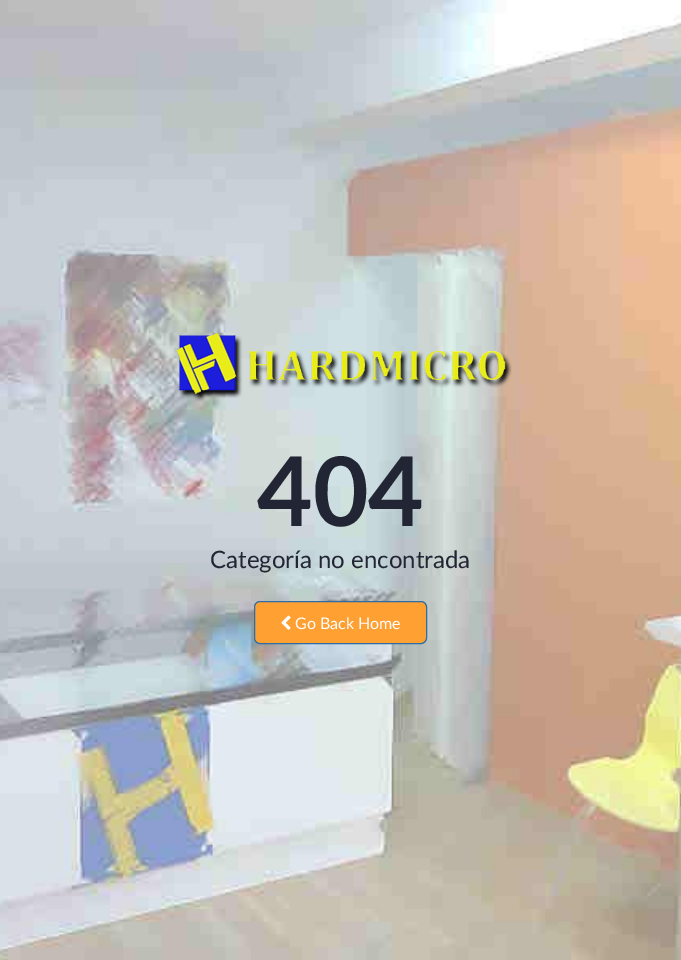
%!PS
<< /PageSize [681 960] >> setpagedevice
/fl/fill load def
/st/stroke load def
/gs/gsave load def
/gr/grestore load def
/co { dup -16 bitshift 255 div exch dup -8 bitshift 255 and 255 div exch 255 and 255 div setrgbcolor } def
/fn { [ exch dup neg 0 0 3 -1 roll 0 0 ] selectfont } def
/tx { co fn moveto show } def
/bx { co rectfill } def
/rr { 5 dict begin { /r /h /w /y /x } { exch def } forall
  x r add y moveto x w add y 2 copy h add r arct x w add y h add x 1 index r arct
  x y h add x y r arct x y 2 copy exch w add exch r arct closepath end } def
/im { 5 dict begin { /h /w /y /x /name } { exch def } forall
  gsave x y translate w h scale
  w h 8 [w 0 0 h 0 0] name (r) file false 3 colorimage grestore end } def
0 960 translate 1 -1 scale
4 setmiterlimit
0 0 681 960 16#FFFFFF bx
(media/1.raw) 0 0 681 960 im
(media/2.raw) 176 332 336 69 im
16#FFA033 co
254.5 601.5 172 42 5.5 rr gs fl gr
16#2E6DA4 co
st
(media/3.raw) 281 615 10 15 im
(404) 257 526 /Lato-Bold 96 16#222533 tx
(Categoría no encontrada) 210 568 /Lato-Regular 24 16#222533 tx
(Go Back Home) 295 629 /Lato-Regular 16 16#FFFFFF tx
showpage
